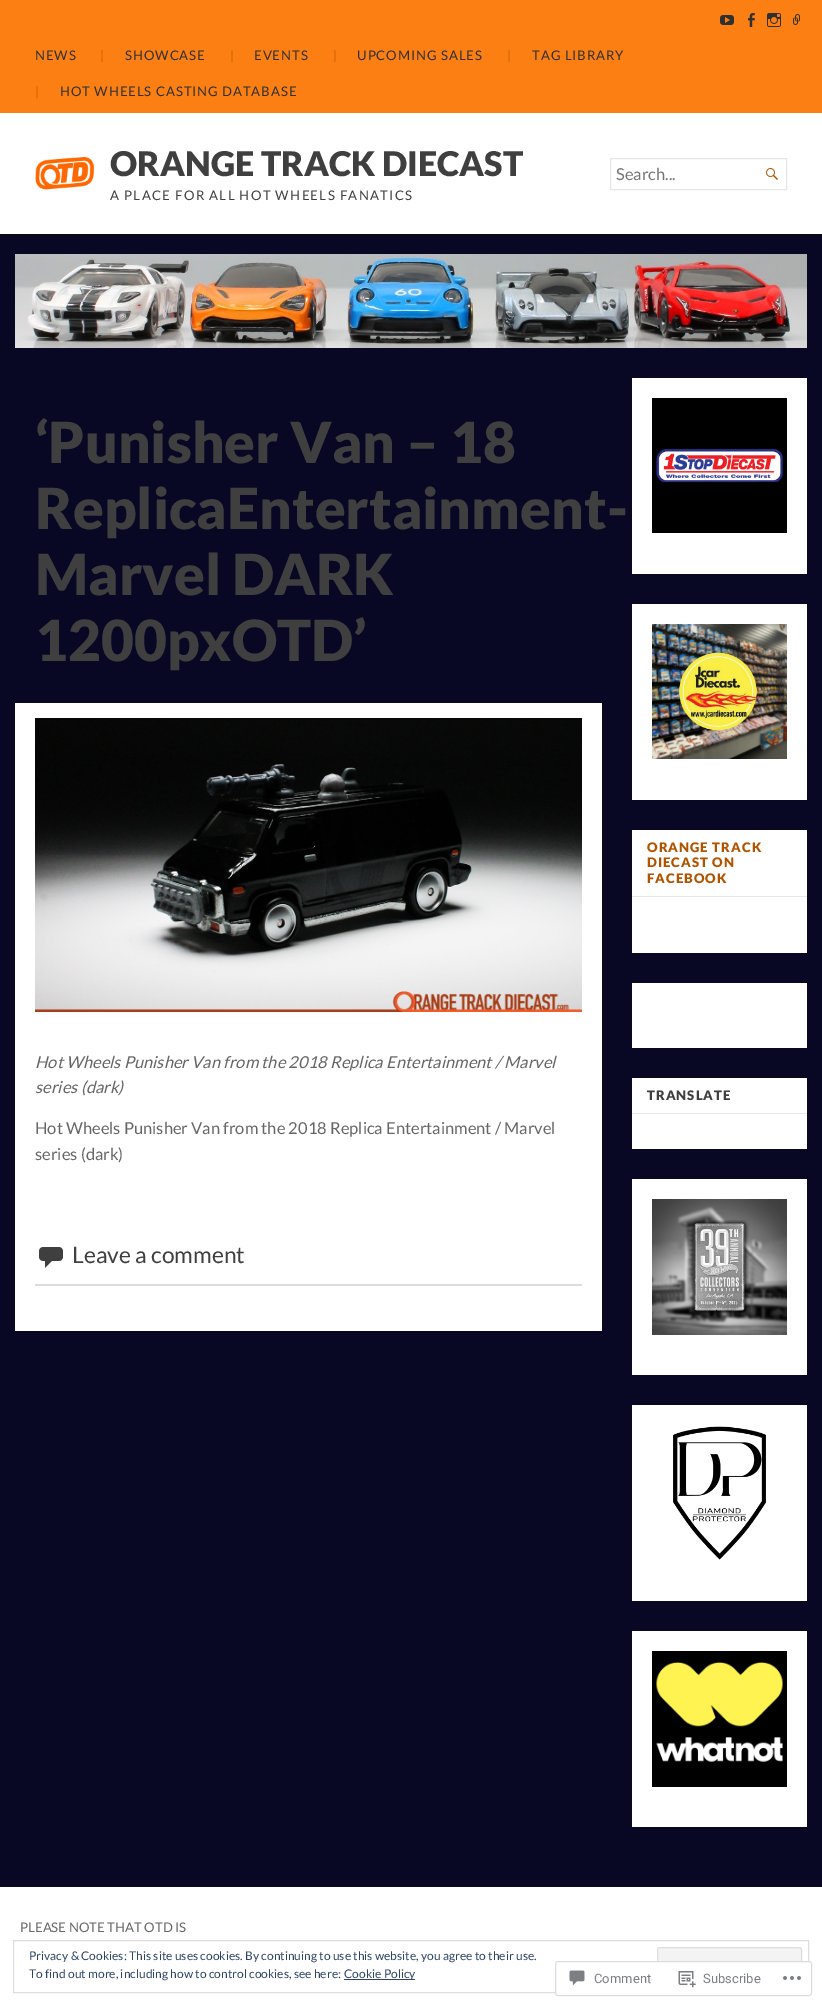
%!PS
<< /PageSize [822 2006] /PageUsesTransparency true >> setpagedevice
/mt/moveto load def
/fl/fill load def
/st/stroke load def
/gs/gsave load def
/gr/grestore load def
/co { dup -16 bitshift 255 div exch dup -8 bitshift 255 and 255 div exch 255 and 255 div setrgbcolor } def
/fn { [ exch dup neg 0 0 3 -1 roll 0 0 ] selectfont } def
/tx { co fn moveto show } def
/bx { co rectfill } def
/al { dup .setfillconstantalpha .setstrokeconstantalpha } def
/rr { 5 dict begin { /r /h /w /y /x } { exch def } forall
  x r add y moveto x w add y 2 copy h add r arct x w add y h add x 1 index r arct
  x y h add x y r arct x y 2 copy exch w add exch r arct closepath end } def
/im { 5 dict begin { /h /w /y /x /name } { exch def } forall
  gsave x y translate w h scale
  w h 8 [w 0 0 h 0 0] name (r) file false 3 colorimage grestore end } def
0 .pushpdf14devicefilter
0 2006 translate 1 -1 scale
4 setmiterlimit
0 0 822 2006 16#080825 bx
0 0 822 113 16#FB7F12 bx
(media/1.raw) 720 15 14 10 im
(media/2.raw) 748 13 7 14 im
(media/3.raw) 767 13 14 14 im
(media/4.raw) 793 14 7 11 im
0 113 822 121 16#FFFFFF bx
(media/5.raw) 35 157 60 33 im
16#E6E6E6 co
610.5 158.5 176 31 rectstroke
(media/6.raw) 766 168 12 12 im
(media/7.raw) 15 254 792 94 im
15 703 587 628 16#FFFFFF bx
(media/8.raw) 35 718 547 294 im
(media/9.raw) 39 1247 24 21 im
35 1284 547 2 16#DCDCDE bx
632 378 175 196 16#FFFFFF bx
(media/10.raw) 652 398 135 135 im
632 604 175 196 16#FFFFFF bx
(media/11.raw) 652 624 135 135 im
632 830 175 123 16#FFFFFF bx
632 896 175 1 16#E6E6E6 bx
632 983 175 65 16#FFFFFF bx
632 1078 175 71 16#FFFFFF bx
632 1113 175 1 16#E6E6E6 bx
632 1179 175 196 16#FFFFFF bx
(media/12.raw) 652 1199 135 136 im
632 1405 175 196 16#FFFFFF bx
(media/13.raw) 673 1426 93 134 im
632 1631 175 196 16#FFFFFF bx
(media/14.raw) 652 1651 135 136 im
0 1887 822 119 16#FFFFFF bx
16#DEDEDE co
13.5 1940.5 795 52 rectstroke
16#F3F3F3 co
657.5 1947.5 144 38 2.5 rr gs fl gr
16#DEDEDE co
st
344 1979 71 1 16#2E4467 bx
0.98 al
16#FFFFFF co
555.5 1961.5 256 34 2.5 rr fl
1 al
16#DDDDDF co
555.5 1961.5 256 34 2.5 rr st
(media/15.raw) 569 1970 16 16 im
(media/16.raw) 678 1971 18 17 im
(media/17.raw) 783 1976 18 4 im
/Lato-Regular 13.2 fn
16#303030 co
35 60 mt .9 0 (NEWS) ashow
16#D86603 co
100 60 mt .9 0 (|) ashow
16#303030 co
125 60 mt .9 0 (SHOWCASE) ashow
16#D86603 co
230 60 mt .9 0 (|) ashow
16#303030 co
254 60 mt .9 0 (EVENTS) ashow
16#D86603 co
333 60 mt .9 0 (|) ashow
16#303030 co
357 60 mt .9 0 (UPCOMING SALES) ashow
16#D86603 co
507 60 mt .9 0 (|) ashow
16#303030 co
532 60 mt .9 0 (TAG LIBRARY) ashow
16#D86603 co
35 96 mt .9 0 (|) ashow
16#303030 co
60 96 mt .9 0 (HOT WHEELS CASTING DATABASE) ashow
(ORANGE TRACK DIECAST) 110 176 /Lato-Black 34 16#3F3F3F tx
/Lato-Regular 13.2 fn
110 200 mt 1.3 0 (A PLACE FOR ALL HOT WHEELS FANATICS) ashow
(Search...) 616 180 /Lato-Regular 16.5 16#757575 tx
(‘Punisher Van – 18) 35 463 /Lato-Black 56.75 16#3F3F3F tx
(ReplicaEntertainment-) 35 529 /Lato-Black 56.75 16#3F3F3F tx
(Marvel DARK) 35 595 /Lato-Black 56.75 16#3F3F3F tx
(1200pxOTD’) 35 661 /Lato-Black 56.75 16#3F3F3F tx
(Hot Wheels Punisher Van from the 2018 Replica Entertainment / Marvel) 35 1068 /Lato-Italic 16.5 16#666666 tx
(series \(dark\)) 35 1093 /Lato-Italic 16.5 16#666666 tx
(Hot Wheels Punisher Van from the 2018 Replica Entertainment / Marvel) 35 1134 /Lato-Regular 16.5 16#666666 tx
(series \(dark\)) 35 1160 /Lato-Regular 16.5 16#666666 tx
(Leave a comment) 72 1263 /Lato-Regular 22.75 16#3F3F3F tx
/Lato-Black 13.2 fn
16#B25300 co
647 852 mt 1 0 (ORANGE TRACK) ashow
647 867 mt 1 0 (DIECAST ON) ashow
647 883 mt 1 0 (FACEBOOK) ashow
16#3F3F3F co
647 1100 mt 1 0 (TRANSLATE) ashow
(PLEASE NOTE THAT OTD IS) 20 1932 /Lato-Regular 13.2 16#666666 tx
(Privacy & Cookies: This site uses cookies. By continuing to use this website, you agree to their use.) 29 1960 /Lato-Regular 12 16#2E4467 tx
(To find out more, including how to control cookies, see here:) 29 1978 /Lato-Regular 12 16#2E4467 tx
(Cookie Policy) 344 1978 /Lato-Regular 12 16#2E4467 tx
(Comment) 594 1983 /Roboto-Regular 13 16#7B7F85 tx
(Subscribe) 703 1983 /Roboto-Regular 13 16#7B7F85 tx
.poppdf14devicefilter showpage
